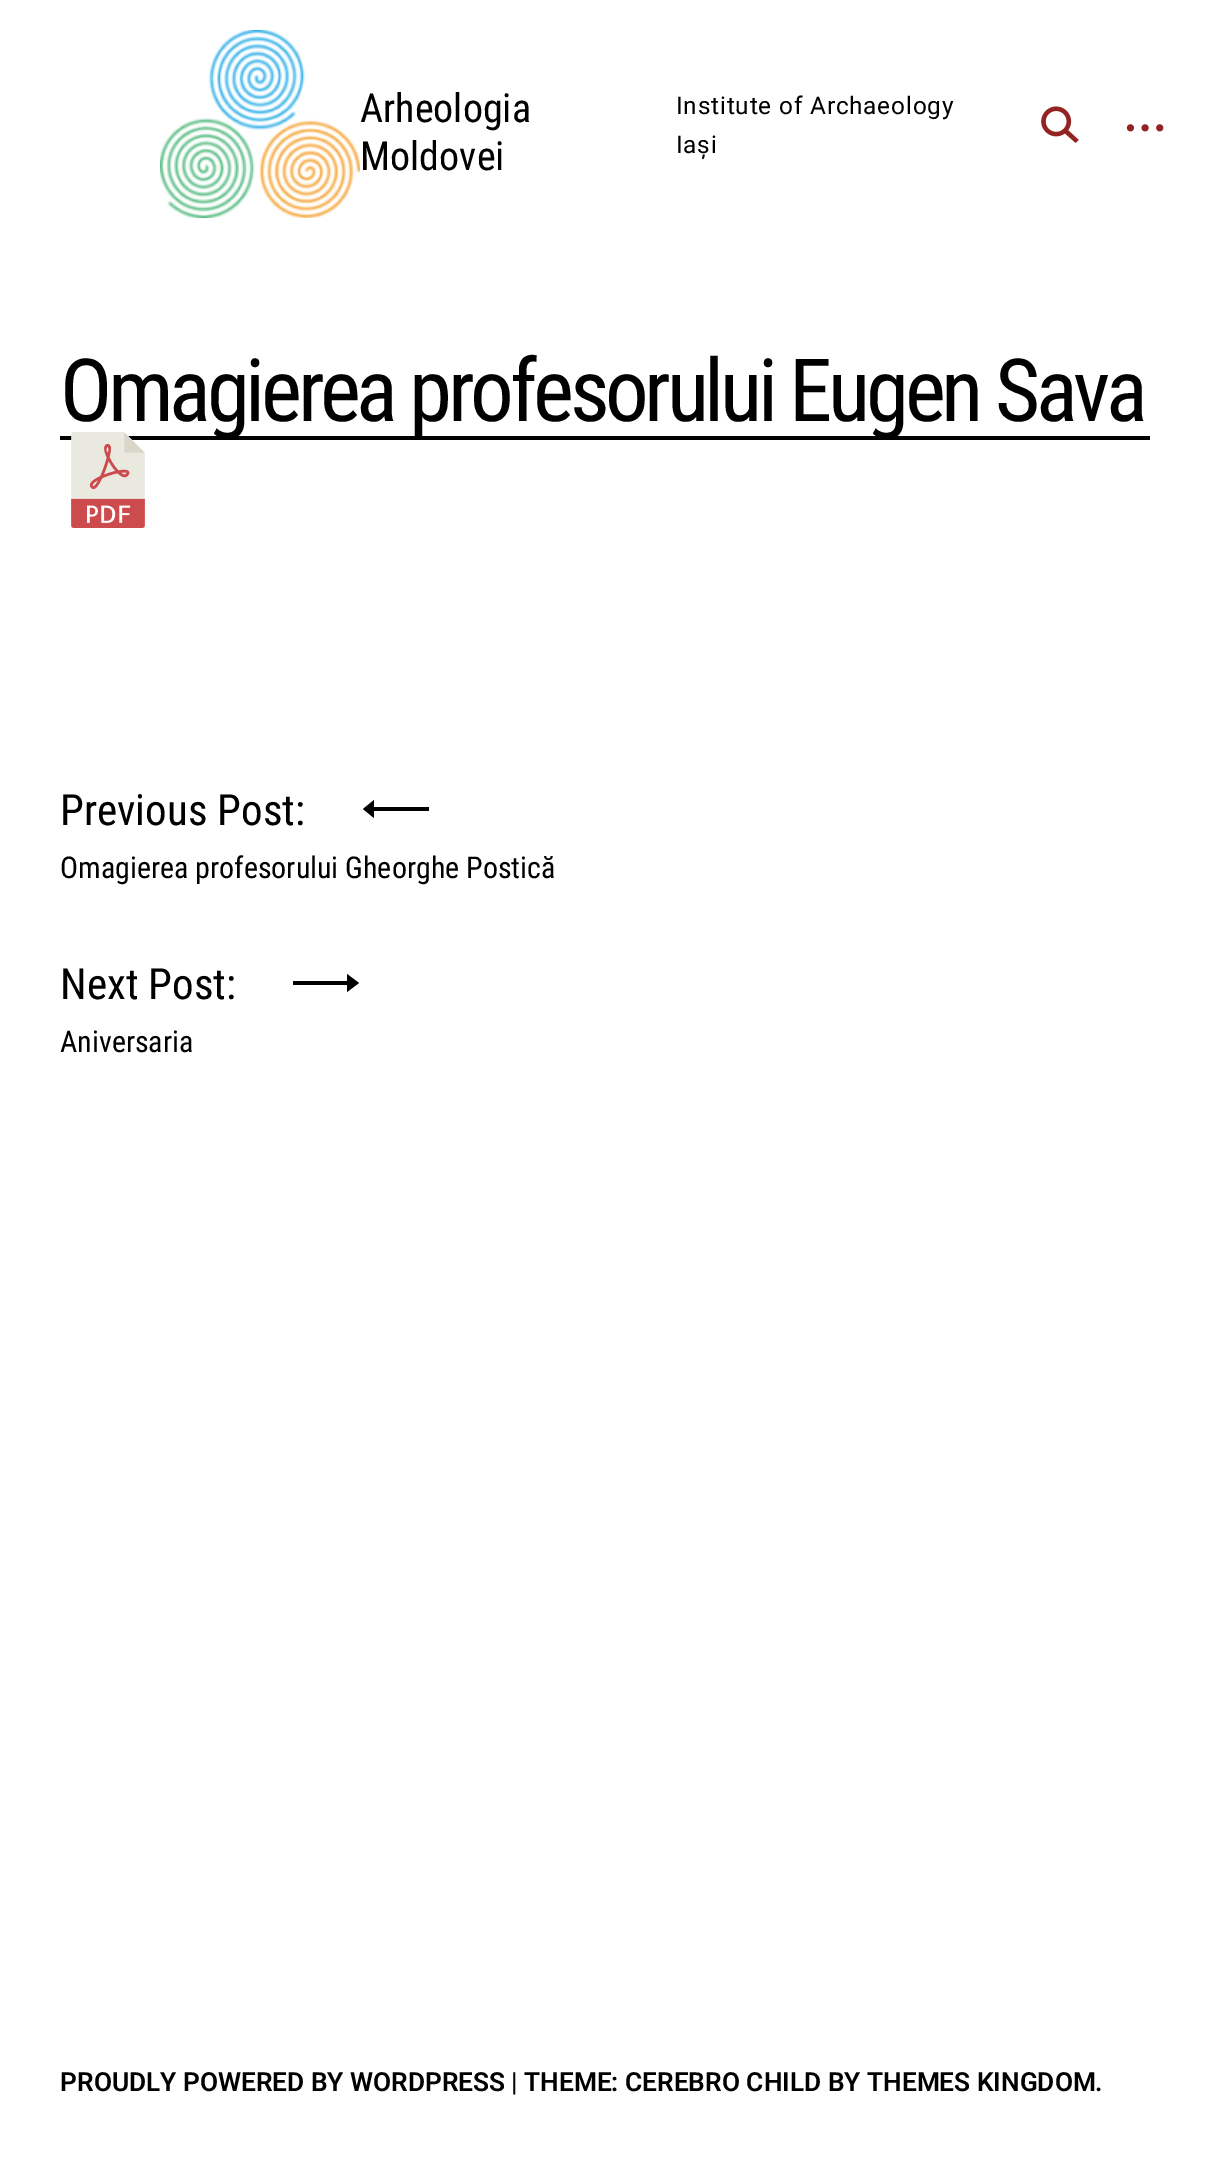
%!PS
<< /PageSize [1209 2179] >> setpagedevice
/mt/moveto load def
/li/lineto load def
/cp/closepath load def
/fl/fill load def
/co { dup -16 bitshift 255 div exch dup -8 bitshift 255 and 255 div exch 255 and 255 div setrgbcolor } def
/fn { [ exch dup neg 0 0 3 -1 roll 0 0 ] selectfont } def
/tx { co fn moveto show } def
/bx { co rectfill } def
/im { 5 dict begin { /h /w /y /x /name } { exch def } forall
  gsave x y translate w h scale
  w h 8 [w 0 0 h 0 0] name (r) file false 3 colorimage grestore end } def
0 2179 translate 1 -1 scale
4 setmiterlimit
0 0 1209 2179 16#FFFFFF bx
(media/1.raw) 160 30 200 188 im
(media/2.raw) 1041 106 38 37 im
(media/3.raw) 1126 124 38 8 im
60 436 1090 4 16#000000 bx
374 807 mt 429 807 li 429 811 li 374 811 li 374 818 li 363 809 li 374 800 li cp fl
347 985 mt 293 985 li 293 981 li 347 981 li 347 974 li 359 983 li 347 992 li cp fl
(Arheologia) 360 122 /RobotoCondensed-Regular 40 16#000000 tx
(Moldovei) 360 170 /RobotoCondensed-Regular 40 16#000000 tx
/Roboto-Regular 24.4 fn
676 114 mt .8 0 (Institute of Archaeology) ashow
676 153 mt .8 0 (Iași) ashow
/RobotoCondensed-Regular 87.2 fn
60 421 mt -4.35 0 (Omagierea profesorului Eugen Sava) ashow
(media/4.raw) 71 432 74 96 im
(Previous Post:) 60 825 /RobotoCondensed-Regular 43 16#000000 tx
(Omagierea profesorului Gheorghe Postică) 60 878 /RobotoCondensed-Regular 30 16#000000 tx
(Next Post:) 60 999 /RobotoCondensed-Regular 43 16#000000 tx
(Aniversaria) 60 1052 /RobotoCondensed-Regular 30 16#000000 tx
(PROUDLY POWERED BY WORDPRESS) 60 2091 /Roboto-SemiBold 26.25 16#000000 tx
(| THEME: CEREBRO CHILD BY) 511 2091 /Roboto-SemiBold 26.25 16#000000 tx
(THEMES KINGDOM) 867 2091 /Roboto-SemiBold 26.25 16#000000 tx
(.) 1095 2091 /Roboto-SemiBold 26.25 16#000000 tx
showpage
